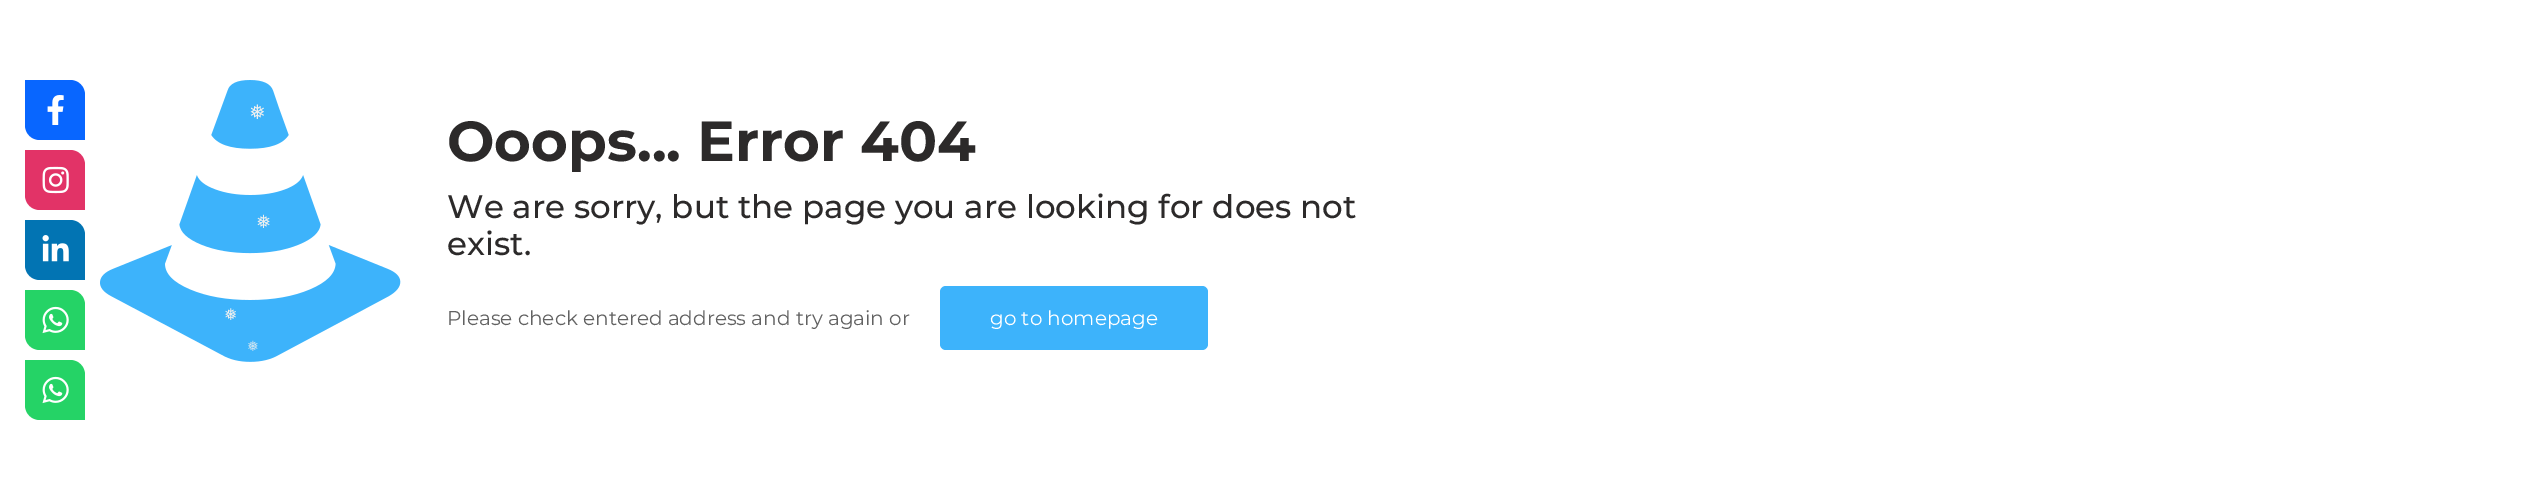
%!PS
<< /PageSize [2534 499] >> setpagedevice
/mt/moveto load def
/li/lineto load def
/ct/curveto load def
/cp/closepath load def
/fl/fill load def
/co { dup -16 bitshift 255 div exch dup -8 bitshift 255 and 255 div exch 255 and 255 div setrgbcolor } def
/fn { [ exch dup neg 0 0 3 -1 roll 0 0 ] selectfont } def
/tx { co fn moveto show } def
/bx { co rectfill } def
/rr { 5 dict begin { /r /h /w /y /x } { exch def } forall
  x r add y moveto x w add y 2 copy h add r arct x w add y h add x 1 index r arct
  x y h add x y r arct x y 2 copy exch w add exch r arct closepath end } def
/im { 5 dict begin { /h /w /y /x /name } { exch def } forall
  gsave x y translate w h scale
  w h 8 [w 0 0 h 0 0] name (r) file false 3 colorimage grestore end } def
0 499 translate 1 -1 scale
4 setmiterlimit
0 0 2534 499 16#FFFFFF bx
16#0866FF co
25 80 mt 70 80 li 78.5 80 85 86.5 85 95 ct 85 140 li 40 140 li 31.5 140 25 133.5 25 125 ct cp fl
(media/1.raw) 47 95 17 30 im
16#E23367 co
25 150 mt 70 150 li 78.5 150 85 156.5 85 165 ct 85 210 li 40 210 li 31.5 210 25 203.5 25 195 ct cp fl
(media/2.raw) 42 166 27 28 im
16#0274B3 co
25 220 mt 70 220 li 78.5 220 85 226.5 85 235 ct 85 280 li 40 280 li 31.5 280 25 273.5 25 265 ct cp fl
(media/3.raw) 42 235 27 27 im
16#25D366 co
25 290 mt 70 290 li 78.5 290 85 296.5 85 305 ct 85 350 li 40 350 li 31.5 350 25 343.5 25 335 ct cp fl
(media/4.raw) 42 306 27 28 im
25 360 mt 70 360 li 78.5 360 85 366.5 85 375 ct 85 420 li 40 420 li 31.5 420 25 413.5 25 405 ct cp fl
(media/4.raw) 42 376 27 28 im
(media/5.raw) 100 80 301 282 im
16#3DB3FB co
940 286 268 64 6 rr fl
(❅) 249 119 /DejaVuSans-Regular 20 16#EFEFEF tx
(❅) 256 228 /DejaVuSans-Regular 18 16#EFEFEF tx
(❅) 224 320 /DejaVuSans-Regular 16 16#EFEFEF tx
(❅) 247 351 /DejaVuSans-Regular 14 16#D6E7F1 tx
(Ooops... Error 404) 447 161 /Montserrat-Bold 56.25 16#2C2A2A tx
(We are sorry, but the page you are looking for does not) 447 218 /Montserrat-Medium 32.5 16#2C2A2A tx
(exist.) 447 255 /Montserrat-Medium 32.5 16#2C2A2A tx
(Please check entered address and try again or) 447 325 /Montserrat-Thin 20 16#626262 tx
(go to homepage) 990 325 /Montserrat-Thin 20 16#FFFFFF tx
showpage
